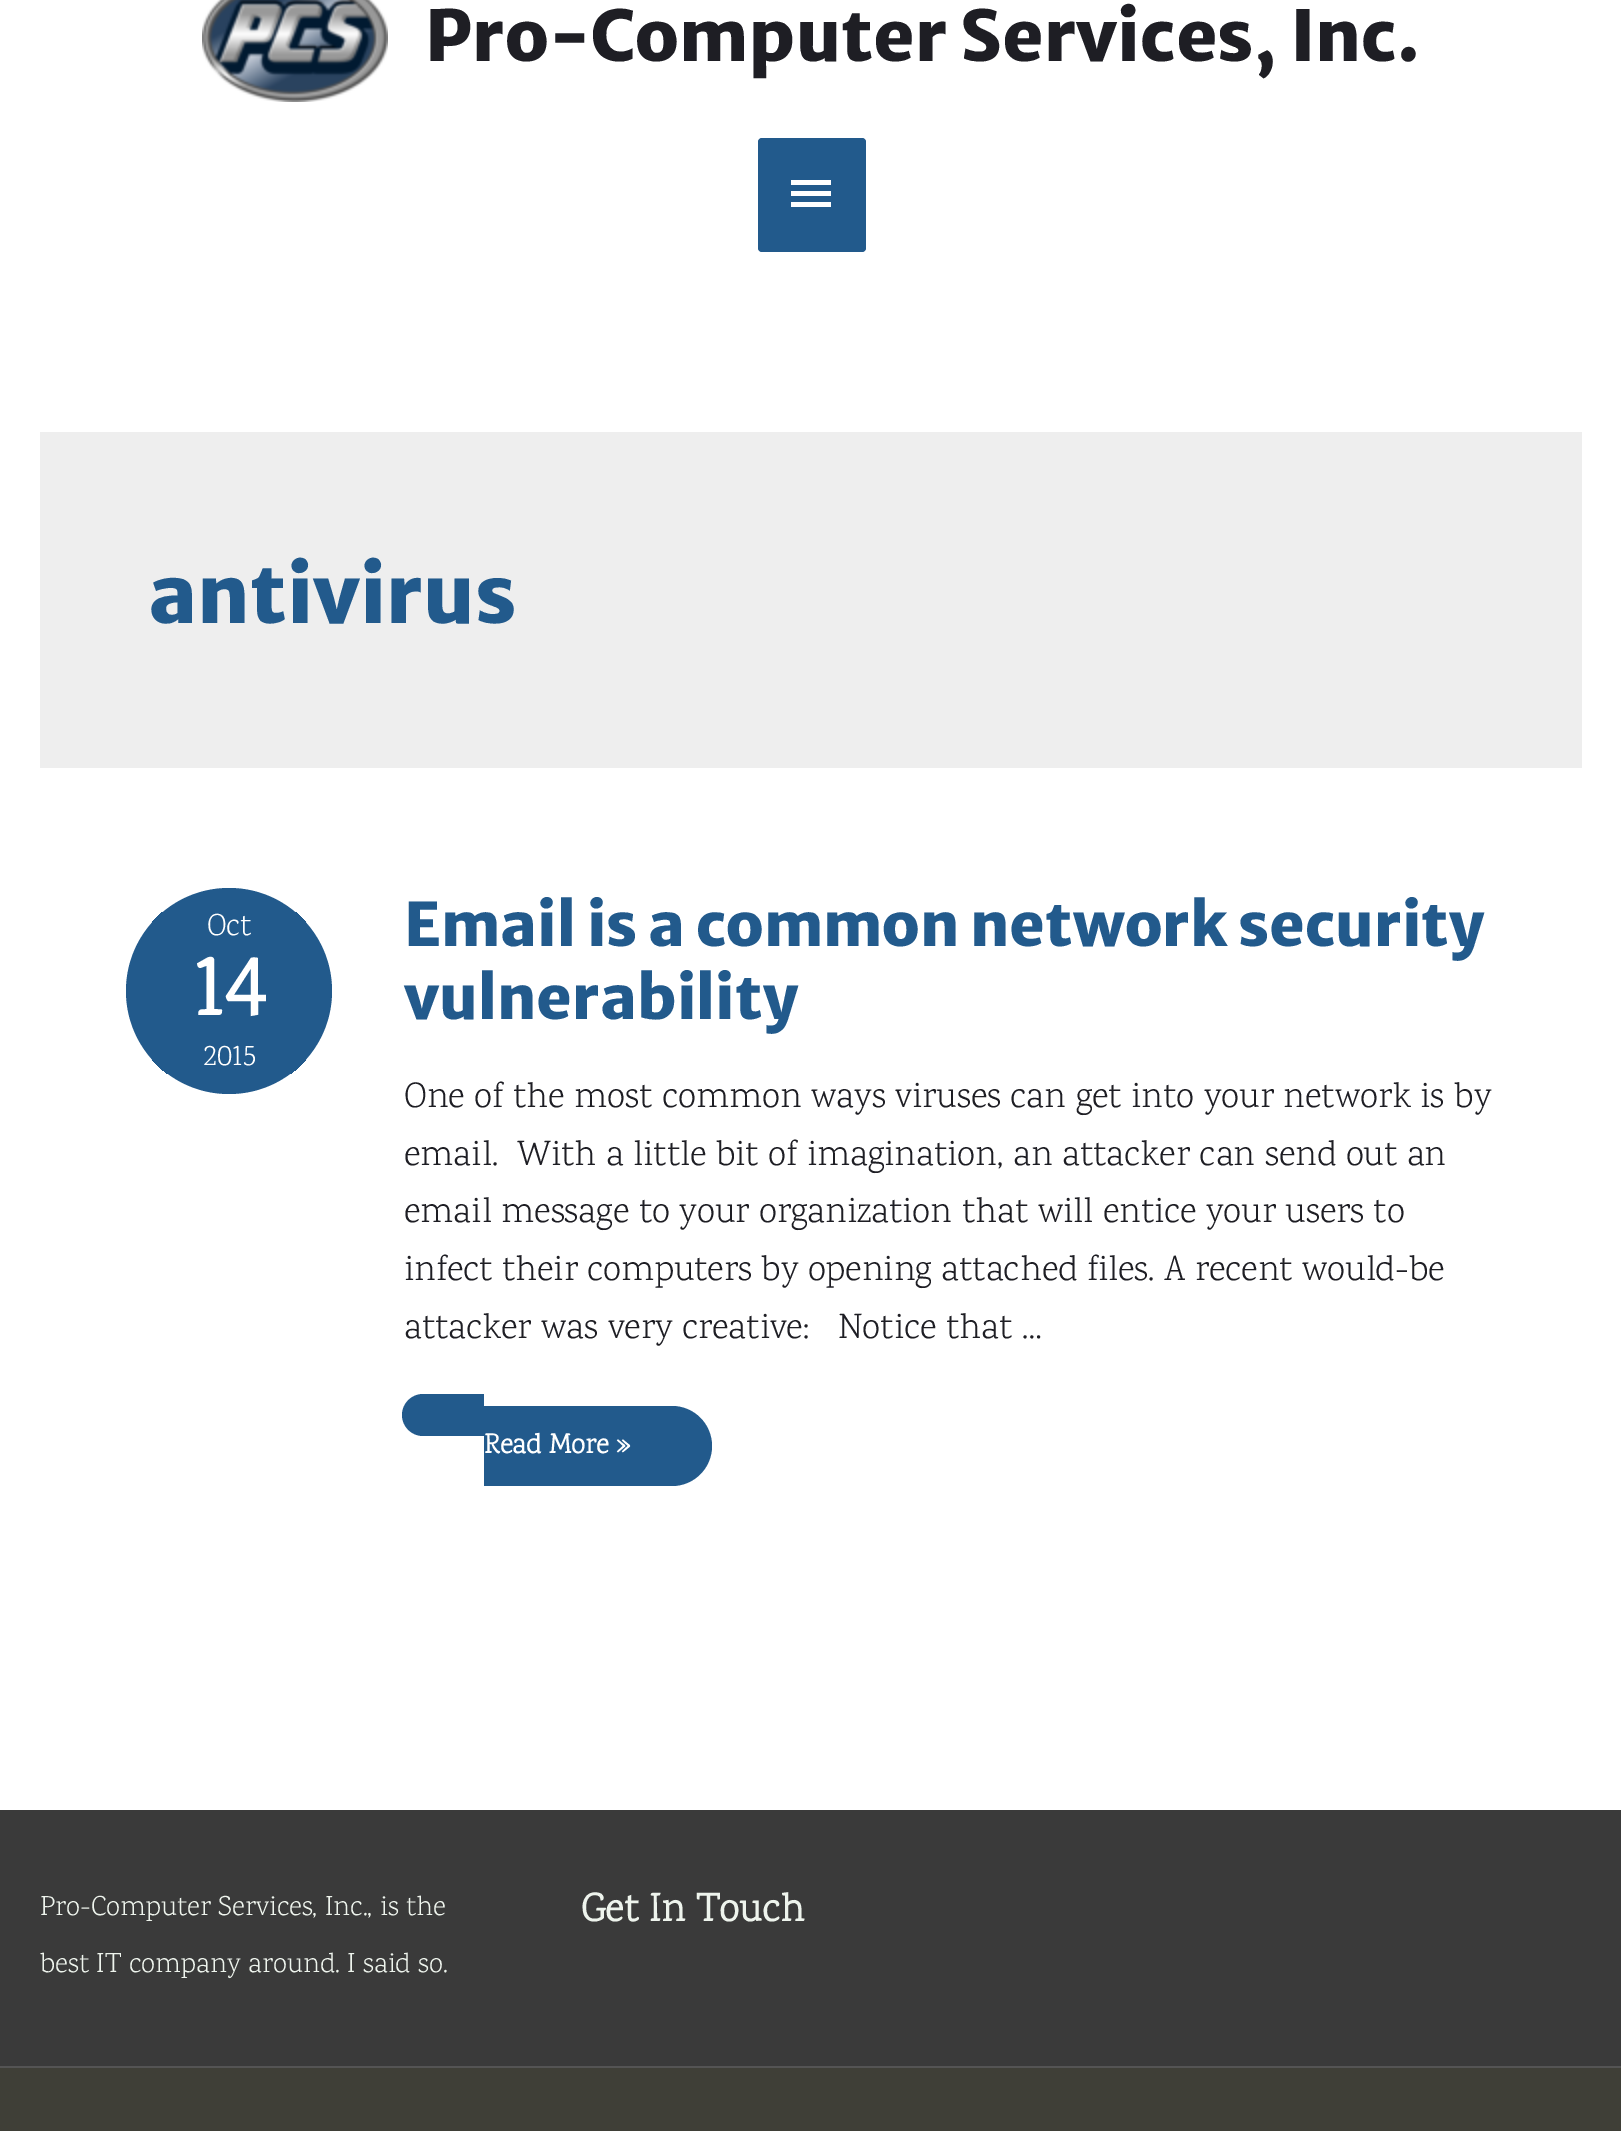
%!PS
<< /PageSize [1621 2131] >> setpagedevice
/mt/moveto load def
/li/lineto load def
/ct/curveto load def
/cp/closepath load def
/fl/fill load def
/gs/gsave load def
/gr/grestore load def
/co { dup -16 bitshift 255 div exch dup -8 bitshift 255 and 255 div exch 255 and 255 div setrgbcolor } def
/fn { [ exch dup neg 0 0 3 -1 roll 0 0 ] selectfont } def
/tx { co fn moveto show } def
/bx { co rectfill } def
/ci { newpath 0 360 arc closepath } def
/rr { 5 dict begin { /r /h /w /y /x } { exch def } forall
  x r add y moveto x w add y 2 copy h add r arct x w add y h add x 1 index r arct
  x y h add x y r arct x y 2 copy exch w add exch r arct closepath end } def
/im { 5 dict begin { /h /w /y /x /name } { exch def } forall
  gsave x y translate w h scale
  w h 8 [w 0 0 h 0 0] name (r) file false 3 colorimage grestore end } def
0 2131 translate 1 -1 scale
4 setmiterlimit
0 0 1621 2131 16#FFFFFF bx
(media/1.raw) 202 0 186 102 im
16#225A8C co
758 138 108 114 4 rr fl
16#FFFFFF co
791 180 mt 831 180 li 831 185 li 791 185 li cp 791 196 mt 791 191 li 831 191 li 831 196 li cp 791 207 mt 791 202 li 831 202 li 831 207 li cp fl
40 432 1542 336 16#EEEEEE bx
16#225A8C co
229 991 103 ci fl
gs
126 888 206 206 103 rr clip newpath
152 912 154 32 16#225A8C bx
152 1042 154 32 16#225A8C bx
gr
423 1394 mt 484 1394 li 484 1436 li 423 1436 li 411.5 1436 402 1426.5 402 1415 ct 402 1403.5 411.5 1394 423 1394 ct cp fl
484 1406 mt 672 1406 li 694 1406 712 1424 712 1446 ct 712 1468 694 1486 672 1486 ct 484 1486 li cp fl
0 1810 1621 256 16#3A3A3A bx
0 2066 1621 2 16#545454 bx
0 2068 1621 63 16#3F3F37 bx
(Pro-Computer Services, Inc.) 425 61 /MerriweatherSans-ExtraBold 70 16#1E1E24 tx
(antivirus) 148 623 /MerriweatherSans-ExtraBold 80 16#225A8C tx
(Oct) 207 935 /Karma-Light 31 16#FFFFFF tx
(14) 193 1015 /Karma-Bold 90 16#FFFFFF tx
(2015) 203 1065 /Karma-Light 31 16#FFFFFF tx
(Email is a common network security) 404 946 /MerriweatherSans-ExtraBold 60 16#225A8C tx
(vulnerability) 404 1019 /MerriweatherSans-ExtraBold 60 16#225A8C tx
(One of the most common ways viruses can get into your network is by) 404 1107 /Karma-Light 36 16#1E1E24 tx
(email.  With a little bit of imagination, an attacker can send out an) 404 1165 /Karma-Light 36 16#1E1E24 tx
(email message to your organization that will entice your users to) 404 1222 /Karma-Light 36 16#1E1E24 tx
(infect their computers by opening attached files. A recent would-be) 404 1280 /Karma-Light 36 16#1E1E24 tx
(attacker was very creative:   Notice that …) 404 1338 /Karma-Light 36 16#1E1E24 tx
(Read More ») 484 1453 /Karma-Bold 28 16#FFFFFF tx
(Pro-Computer Services, Inc., is the) 40 1915 /Karma-Light 28 16#EEF4ED tx
(best IT company around. I said so.) 40 1972 /Karma-Light 28 16#EEF4ED tx
(Get In Touch) 581 1921 /Karma-Bold 40 16#EEF4ED tx
showpage
